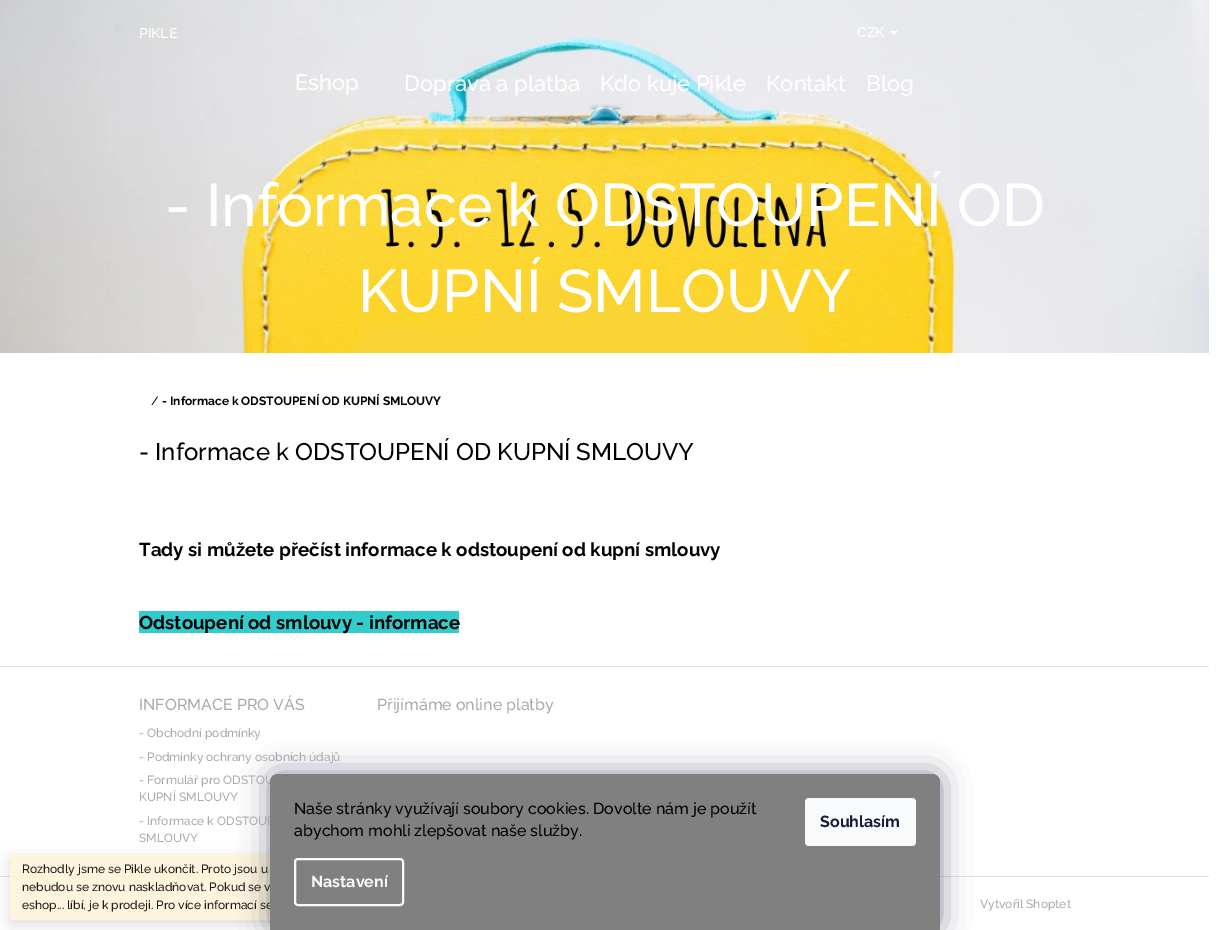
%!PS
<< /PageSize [1224 930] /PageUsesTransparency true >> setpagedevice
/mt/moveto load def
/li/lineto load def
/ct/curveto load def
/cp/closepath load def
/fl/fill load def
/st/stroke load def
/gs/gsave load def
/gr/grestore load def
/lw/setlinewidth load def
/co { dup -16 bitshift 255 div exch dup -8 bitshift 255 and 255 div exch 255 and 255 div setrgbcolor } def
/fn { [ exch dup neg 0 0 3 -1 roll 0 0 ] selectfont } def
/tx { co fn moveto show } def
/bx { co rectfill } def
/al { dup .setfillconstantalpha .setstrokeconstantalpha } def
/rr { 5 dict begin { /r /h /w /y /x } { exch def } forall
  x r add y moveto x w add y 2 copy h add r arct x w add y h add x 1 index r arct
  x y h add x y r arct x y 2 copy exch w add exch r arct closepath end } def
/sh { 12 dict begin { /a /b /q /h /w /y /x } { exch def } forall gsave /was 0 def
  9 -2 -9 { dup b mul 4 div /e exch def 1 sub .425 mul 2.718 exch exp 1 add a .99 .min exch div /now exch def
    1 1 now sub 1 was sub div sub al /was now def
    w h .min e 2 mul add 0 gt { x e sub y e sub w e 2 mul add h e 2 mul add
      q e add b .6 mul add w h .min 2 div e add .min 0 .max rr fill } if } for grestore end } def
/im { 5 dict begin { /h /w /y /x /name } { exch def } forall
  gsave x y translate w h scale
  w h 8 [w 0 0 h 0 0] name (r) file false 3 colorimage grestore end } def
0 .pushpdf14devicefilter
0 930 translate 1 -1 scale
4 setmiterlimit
0 0 1224 930 16#FFFFFF bx
(media/1.raw) 0 0 1209 353 im
890 31 mt 898 31 li 894 35 li cp fl
139 611 320 22 16#33CCCC bx
0 666 1209 1 16#E3E3E3 bx
0 876 1209 1 16#E3E3E3 bx
gs
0 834 mt 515 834 li 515 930 li 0 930 li cp 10 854 mt 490 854 li 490 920 li 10 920 li cp eoclip newpath
16#000000 co
10 859 480 66 0 8 .14 sh
gr
0.9 al
10 854 260 66 16#FDF3DA bx
1 al
16#1B1939 co
270 774 670 156 8 15 .5 sh
(PIKLE) 139 38 /Raleway-Medium 14 16#FFFFFF tx
(CZK) 857 37 /Raleway-Medium 14 16#FFFFFF tx
(Eshop) 295 90 /Raleway-Medium 22 16#FFFFFF tx
(Doprava a platba) 404 91 /Raleway-Medium 22 16#FFFFFF tx
(Kdo kuje Pikle) 600 91 /Raleway-Medium 22 16#FFFFFF tx
(Kontakt) 766 91 /Raleway-Medium 22 16#FFFFFF tx
(Blog) 866 91 /Raleway-Medium 22 16#FFFFFF tx
(- Informace k ODSTOUPENÍ OD) 165 226 /Raleway-Medium 60 16#FFFFFF tx
(KUPNÍ SMLOUVY) 358 312 /Raleway-Medium 60 16#FFFFFF tx
(/) 151 405 /Raleway-Medium 12 16#000000 tx
(- Informace k ODSTOUPENÍ OD KUPNÍ SMLOUVY) 162 405 /Raleway-Bold 12 16#000000 tx
(- Informace k ODSTOUPENÍ OD KUPNÍ SMLOUVY) 139 460 /Raleway-Medium 24 16#000000 tx
(Tady si můžete přečíst informace k odstoupení od kupní smlouvy) 139 556 /Raleway-Bold 18.7 16#000000 tx
(Odstoupení od smlouvy - informace) 139 629 /Raleway-Bold 18.7 16#000000 tx
(INFORMACE PRO VÁS) 139 710 /Raleway-Medium 16 16#AAAAAA tx
(- Obchodní podmínky) 139 737 /Raleway-Medium 12 16#AAAAAA tx
(- Podmínky ochrany osobních údajů) 139 761 /Raleway-Medium 12 16#AAAAAA tx
(- Formulář pro ODSTOU) 139 784 /Raleway-Medium 12 16#AAAAAA tx
(KUPNÍ SMLOUVY) 139 801 /Raleway-Medium 12 16#AAAAAA tx
(- Informace k ODSTOUP) 139 825 /Raleway-Medium 12 16#AAAAAA tx
(SMLOUVY) 139 842 /Raleway-Medium 12 16#AAAAAA tx
(Přijímáme online platby) 377 710 /Raleway-Medium 16 16#AAAAAA tx
(Vytvořil Shoptet) 980 908 /Raleway-Medium 12 16#AAAAAA tx
(Rozhodly jsme se Pikle ukončit. Proto jsou u) 22 873 /Raleway-Medium 12 16#1A1A1A tx
(nebudou se znovu naskladňovat. Pokud se v) 22 891 /Raleway-Medium 12 16#1A1A1A tx
(eshop... líbí, je k prodeji. Pro více informací se) 22 909 /Raleway-Medium 12 16#1A1A1A tx
16#808080 co
278 774 mt 932 774 li 936.5 774 940 777.5 940 782 ct 940 930 li 270 930 li 270 782 li 270 777.5 273.5 774 278 774 ct cp fl
(Naše stránky využívají soubory cookies. Dovolte nám je použít) 294 814 /Raleway-Medium 16 16#000000 tx
(abychom mohli zlepšovat naše služby.) 294 836 /Raleway-Medium 16 16#000000 tx
16#F8FAFB co
2 lw
295 859 108 46 3 rr st
(Nastavení) 311 887 /Raleway-Bold 16 16#F8FAFB tx
805 798 111 48 4 rr fl
(Souhlasím) 820 827 /Raleway-Bold 16 16#1A1937 tx
.poppdf14devicefilter showpage
